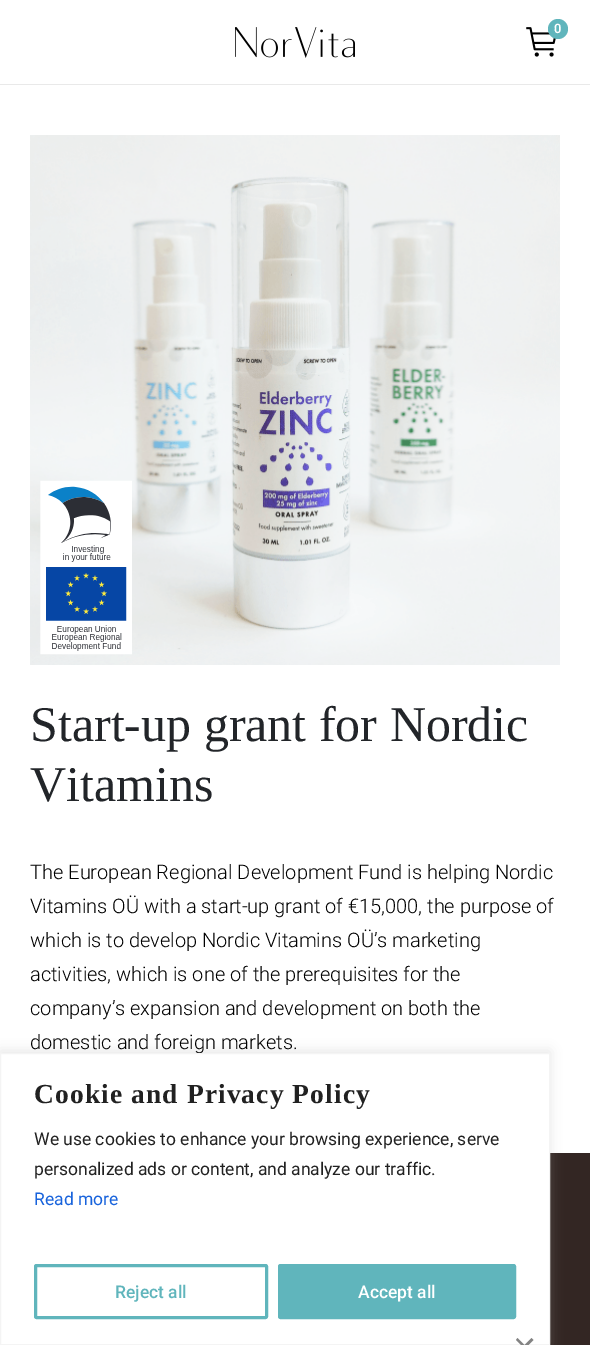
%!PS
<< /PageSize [590 1345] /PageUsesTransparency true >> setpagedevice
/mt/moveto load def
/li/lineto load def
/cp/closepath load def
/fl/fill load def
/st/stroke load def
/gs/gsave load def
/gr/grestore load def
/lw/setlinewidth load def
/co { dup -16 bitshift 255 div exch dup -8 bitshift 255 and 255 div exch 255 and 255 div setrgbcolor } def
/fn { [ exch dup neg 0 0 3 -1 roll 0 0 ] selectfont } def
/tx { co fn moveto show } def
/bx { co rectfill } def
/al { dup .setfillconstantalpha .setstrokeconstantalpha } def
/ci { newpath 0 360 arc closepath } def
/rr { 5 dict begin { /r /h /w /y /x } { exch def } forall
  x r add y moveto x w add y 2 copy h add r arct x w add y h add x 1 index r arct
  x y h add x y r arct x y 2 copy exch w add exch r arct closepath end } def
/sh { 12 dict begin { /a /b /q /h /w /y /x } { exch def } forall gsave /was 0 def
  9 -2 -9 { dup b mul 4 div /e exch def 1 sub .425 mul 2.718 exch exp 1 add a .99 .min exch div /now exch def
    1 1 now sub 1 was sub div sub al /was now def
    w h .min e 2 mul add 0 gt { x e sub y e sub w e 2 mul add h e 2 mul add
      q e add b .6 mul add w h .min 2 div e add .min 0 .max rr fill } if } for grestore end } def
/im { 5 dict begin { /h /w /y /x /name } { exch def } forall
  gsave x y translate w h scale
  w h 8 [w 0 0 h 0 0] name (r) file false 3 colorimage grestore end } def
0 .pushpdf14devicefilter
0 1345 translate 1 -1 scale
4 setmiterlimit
0 0 590 1345 16#FFFFFF bx
0 84 590 1 16#E9E9E9 bx
(media/1.raw) 235 27 120 31 im
(media/2.raw) 526 27 30 30 im
16#60B5BC co
558 29 10 ci fl
(media/3.raw) 30 135 530 530 im
(media/4.raw) 40 480 92 175 im
550 1153 40 192 16#332623 bx
16#ACABAB co
0 1051 550 293 0 6 .3 sh
(0) 554 33 /Roboto-SemiBold 13 16#FFFFFF tx
(Start-up grant for Nordic) 30 741 /LiberationSerif-Regular 50 16#222529 tx
(Vitamins) 30 801 /LiberationSerif-Regular 50 16#222529 tx
(The European Regional Development Fund is helping Nordic) 30 879 /Roboto-Light 20 16#000000 tx
(Vitamins OÜ with a start-up grant of €15,000, the purpose of) 30 913 /Roboto-Light 20 16#000000 tx
(which is to develop Nordic Vitamins OÜ’s marketing) 30 947 /Roboto-Light 20 16#000000 tx
(activities, which is one of the prerequisites for the) 30 981 /Roboto-Light 20 16#000000 tx
(company’s expansion and development on both the) 30 1015 /Roboto-Light 20 16#000000 tx
(domestic and foreign markets.) 30 1049 /Roboto-Light 20 16#000000 tx
16#FFFFFF co
.5 1053.5 mt 549.5 1053.5 li 549.5 1344.5 li .5 1344.5 li cp gs fl gr
16#F4F4F4 co
st
/LiberationSerif-Bold 27.5 fn
16#212121 co
34 1103 mt 1.1 0 (Cookie and Privacy Policy) ashow
(We use cookies to enhance your browsing experience, serve) 34 1145 /Roboto-Regular 17.5 16#212121 tx
(personalized ads or content, and analyze our traffic.) 34 1175 /Roboto-Regular 17.5 16#212121 tx
(Read more) 34 1205 /Roboto-Regular 17.5 16#1863DC tx
16#60B5BC co
3 lw
35.5 1265.5 231 52 1 rr st
(Reject all) 115 1298 /Roboto-Medium 17.5 16#60B5BC tx
279.5 1265.5 235 52 1 rr gs fl gr
st
(Accept all) 358 1298 /Roboto-Medium 17.5 16#FFFFFF tx
16#838383 co
517.5 1338 mt 532.5 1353.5 li 531 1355 li 516 1340 li cp fl
531.5 1338 mt 533.5 1340 li 518.5 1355 li 516.5 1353.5 li cp fl
.poppdf14devicefilter showpage
